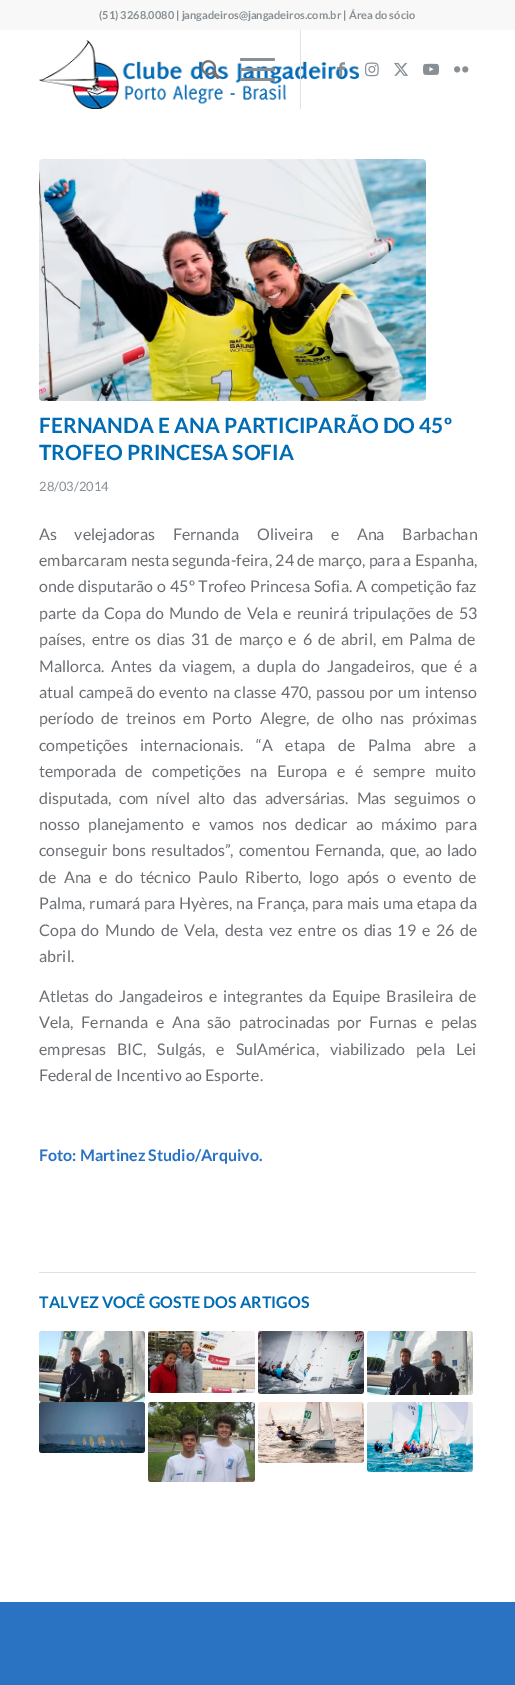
%!PS
<< /PageSize [515 1685] >> setpagedevice
/mt/moveto load def
/fl/fill load def
/co { dup -16 bitshift 255 div exch dup -8 bitshift 255 and 255 div exch 255 and 255 div setrgbcolor } def
/fn { [ exch dup neg 0 0 3 -1 roll 0 0 ] selectfont } def
/tx { co fn moveto show } def
/bx { co rectfill } def
/rr { 5 dict begin { /r /h /w /y /x } { exch def } forall
  x r add y moveto x w add y 2 copy h add r arct x w add y h add x 1 index r arct
  x y h add x y r arct x y 2 copy exch w add exch r arct closepath end } def
/im { 5 dict begin { /h /w /y /x /name } { exch def } forall
  gsave x y translate w h scale
  w h 8 [w 0 0 h 0 0] name (r) file false 3 colorimage grestore end } def
0 1685 translate 1 -1 scale
4 setmiterlimit
0 0 515 1685 16#2973C2 bx
0 30 515 1572 16#FFFFFF bx
(media/7.raw) 39 40 320 69 im
300 29 1 80 16#E1E1E1 bx
0 0 515 30 16#F8F8F8 bx
(media/1.raw) 201 60 19 20 im
16#889095 co
240 68 35 3 1.5 rr fl
240 58 35 3 1.5 rr fl
240 78 35 3 1.5 rr fl
(media/2.raw) 337 62 8 15 im
(media/3.raw) 365 62 14 15 im
(media/4.raw) 394 62 14 14 im
(media/5.raw) 423 63 16 12 im
(media/6.raw) 454 66 15 7 im
(media/8.raw) 39 159 387 242 im
39 1272 437 1 16#E1E1E1 bx
(media/9.raw) 39 1331 106 71 im
(media/10.raw) 148 1331 107 62 im
(media/11.raw) 258 1331 106 63 im
(media/12.raw) 367 1331 106 64 im
(media/13.raw) 39 1402 106 51 im
(media/14.raw) 148 1402 107 80 im
(media/15.raw) 258 1402 106 61 im
(media/16.raw) 367 1402 106 70 im
(\(51\) 3268.0080 | jangadeiros@jangadeiros.com.br | Área do sócio) 99 19 /Lato-Bold 11 16#889095 tx
(FERNANDA E ANA PARTICIPARÃO DO 45º) 39 433 /Lato-Bold 21 16#006CB4 tx
(TROFEO PRINCESA SOFIA) 39 460 /Lato-Bold 21 16#006CB4 tx
(28/03/2014) 39 491 /Lato-Regular 13 16#889095 tx
/Lato-Regular 16 fn
16#6B6F73 co
39 540 mt 14.5 0 32 (As velejadoras Fernanda Oliveira e Ana Barbachan) widthshow
39 566 mt .25 0 32 (embarcaram nesta segunda-feira, 24 de março, para a Espanha,) widthshow
39 592 mt .75 0 32 (onde disputarão o) widthshow
170 592 mt .75 0 32 (45º Trofeo Princesa Sofia. A competição faz) widthshow
39 619 mt 2 0 32 (parte da Copa do Mundo de Vela e reunirá tripulações de 53) widthshow
39 645 mt 2.75 0 32 (países, entre os dias 31 de março e 6 de abril, em Palma de) widthshow
39 672 mt 3.5 0 32 (Mallorca. Antes da viagem, a dupla do Jangadeiros, que é a) widthshow
39 698 mt 1.4 0 32 (atual campeã do evento na classe 470, passou por um intenso) widthshow
39 724 mt 4.5 0 32 (período de treinos em Porto Alegre, de olho nas próximas) widthshow
39 751 mt 9.75 0 32 (competições internacionais. “A etapa de Palma abre a) widthshow
39 777 mt 6.5 0 32 (temporada de competições na Europa e é sempre muito) widthshow
39 804 mt 4.75 0 32 (disputada, com nível alto das adversárias. Mas seguimos o) widthshow
39 830 mt 5.25 0 32 (nosso planejamento e vamos nos dedicar ao máximo para) widthshow
39 856 mt 2 0 32 (conseguir bons resultados”, comentou Fernanda, que, ao lado) widthshow
39 883 mt 4.25 0 32 (de Ana e do técnico Paulo Riberto, logo após o evento de) widthshow
39 909 mt .5 0 32 (Palma, rumará para Hyères, na França, para mais uma etapa da) widthshow
39 936 mt 2.6 0 32 (Copa do Mundo de Vela, desta vez entre os dias 19 e 26 de) widthshow
(abril.) 39 962 /Lato-Regular 16 16#6B6F73 tx
39 1002 mt 2.75 0 32 (Atletas do Jangadeiros e integrantes da Equipe Brasileira de) widthshow
39 1028 mt 4.5 0 32 (Vela, Fernanda e Ana são patrocinadas por Furnas e pelas) widthshow
39 1055 mt 7.75 0 32 (empresas BIC, Sulgás, e SulAmérica, viabilizado pela Lei) widthshow
(Federal de Incentivo ao Esporte.) 39 1081 /Lato-Regular 16 16#6B6F73 tx
(Foto: Martinez Studio/Arquivo.) 39 1161 /Lato-Bold 16 16#2973C2 tx
(TALVEZ VOCÊ GOSTE DOS ARTIGOS) 39 1308 /Lato-Bold 16 16#006CB4 tx
showpage
